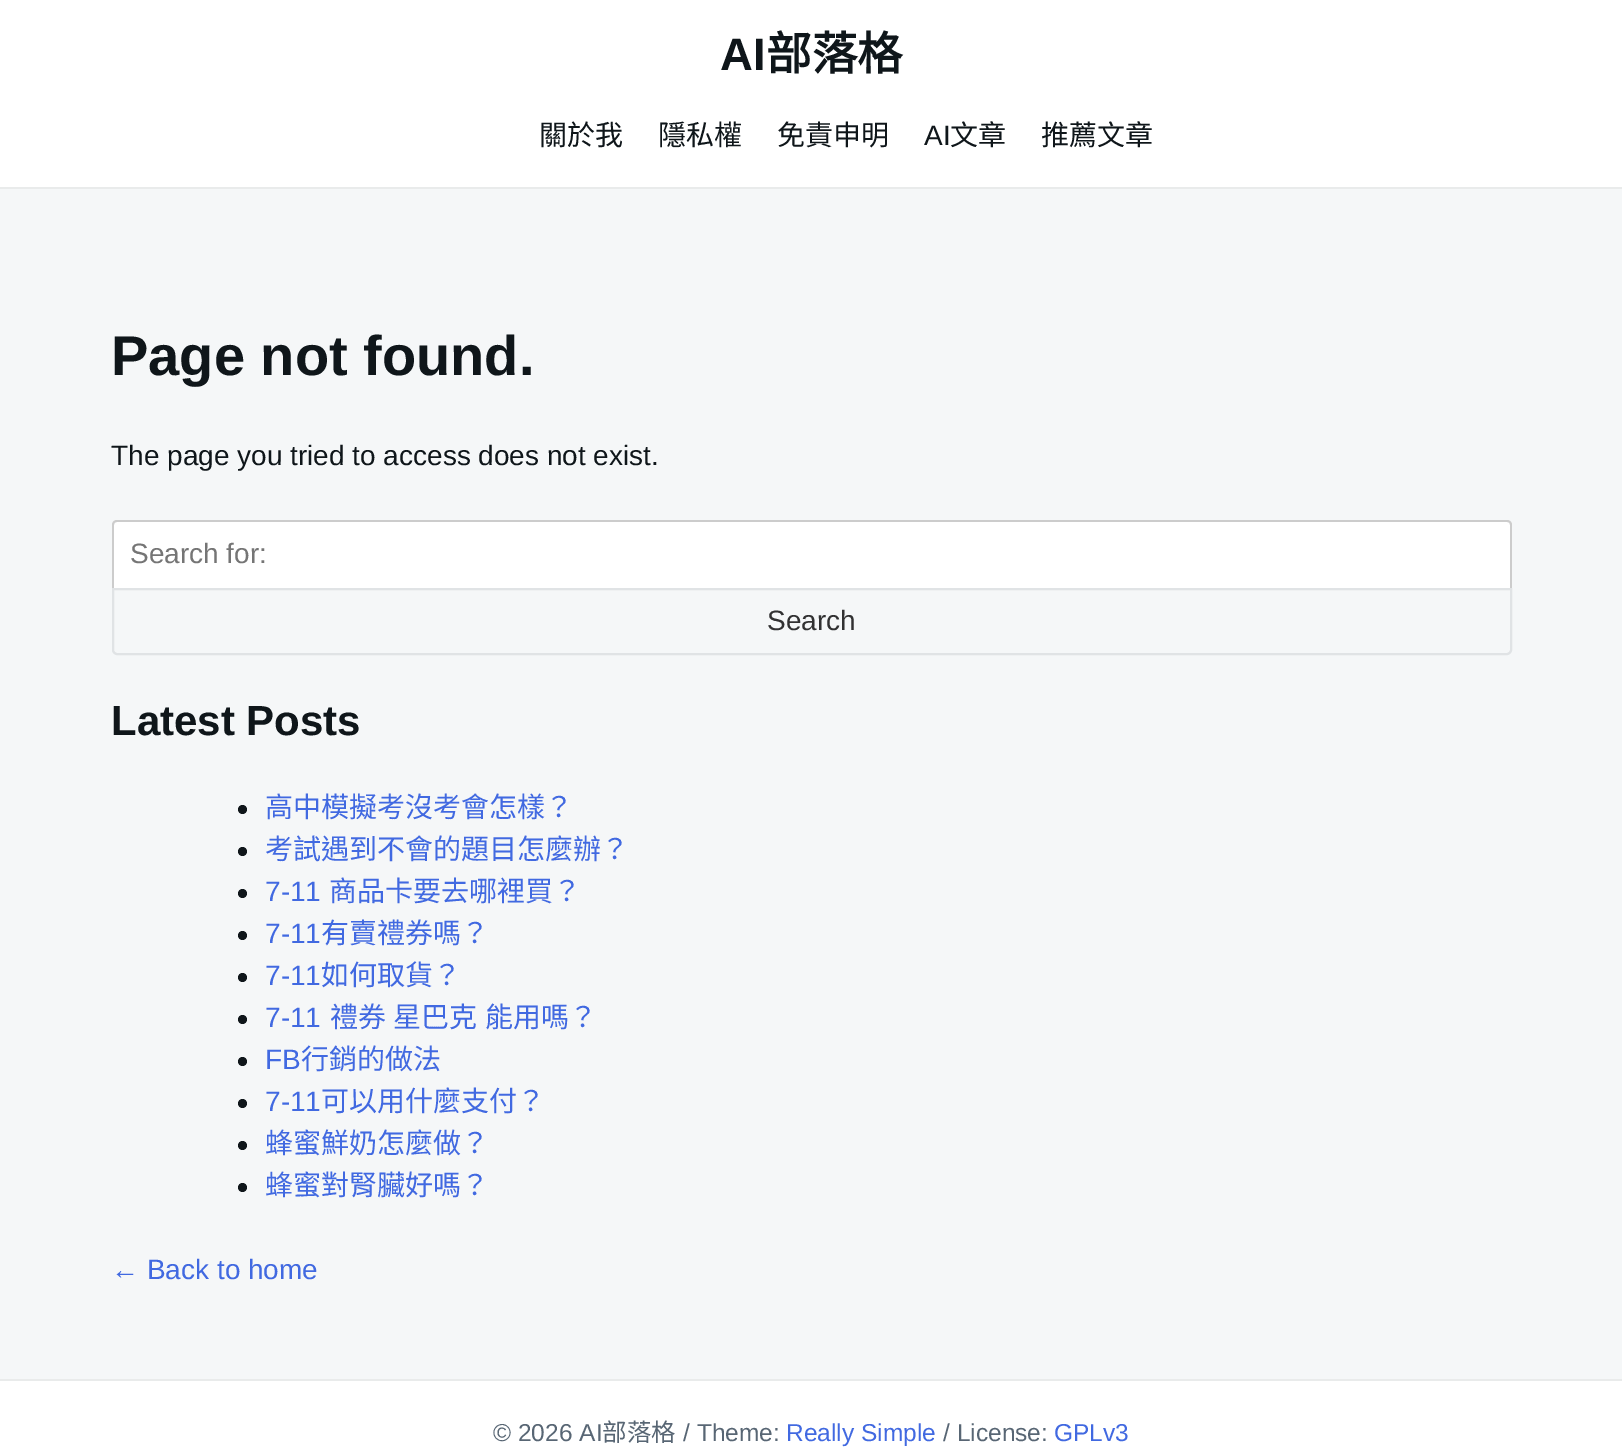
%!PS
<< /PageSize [1622 1450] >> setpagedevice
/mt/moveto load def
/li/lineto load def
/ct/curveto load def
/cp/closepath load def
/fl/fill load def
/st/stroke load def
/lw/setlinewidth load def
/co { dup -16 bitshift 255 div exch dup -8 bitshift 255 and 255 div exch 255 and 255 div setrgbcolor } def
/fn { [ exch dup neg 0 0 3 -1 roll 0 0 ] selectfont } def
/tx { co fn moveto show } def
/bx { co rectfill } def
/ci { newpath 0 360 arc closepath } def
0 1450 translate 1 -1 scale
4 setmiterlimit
0 0 1622 1450 16#F5F7F8 bx
0 0 1622 187 16#FFFFFF bx
0 187 1622 2 16#E9EBEB bx
16#FFFFFF co
117 520 mt 1507 520 li 1510 520 1512 522 1512 525 ct 1512 588 li 112 588 li 112 525 li 112 522 114 520 117 520 ct cp fl
16#CCCCCC co
117 520 mt 1507 520 li 1510 520 1512 522 1512 525 ct 1512 588 li 112 588 li 112 525 li 112 522 114 520 117 520 ct cp 117 522 mt 1507 522 li 1509 522 1510 523 1510 525 ct 1510 588 li 114 588 li 114 525 li 114 523 115 522 117 522 ct cp eofill
16#E0E3E5 co
2 lw
113 589 mt 1511 589 li 1511 650 li 1511 652 1509 654 1507 654 ct 117 654 li 115 654 113 652 113 650 ct cp st
16#0F161A co
242.5 809.5 4.5 ci fl
242.5 851.5 4.5 ci fl
242.5 893.5 4.5 ci fl
242.5 935.5 4.5 ci fl
242.5 977.5 4.5 ci fl
242.5 1019.5 4.5 ci fl
242.5 1061.5 4.5 ci fl
242.5 1103.5 4.5 ci fl
242.5 1145.5 4.5 ci fl
242.5 1187.5 4.5 ci fl
0 1381 1622 69 16#FFFFFF bx
0 1379 1622 2 16#E9EBEB bx
(AI) 720 70 /LiberationSans-Bold 45.5 16#0F161A tx
(部落格) 766 70 /NotoSansCJKTC-Bold 45.5 16#0F161A tx
(關於我) 539 145 /NotoSansCJKTC-Regular 28 16#0F161A tx
(隱私權) 658 145 /NotoSansCJKTC-Regular 28 16#0F161A tx
(免責申明) 777 145 /NotoSansCJKTC-Regular 28 16#0F161A tx
(AI) 924 145 /LiberationSans-Regular 28 16#0F161A tx
(文章) 950 145 /NotoSansCJKTC-Regular 28 16#0F161A tx
(推薦文章) 1041 145 /NotoSansCJKTC-Regular 28 16#0F161A tx
(Page not found.) 111 375 /LiberationSans-Bold 56 16#0F161A tx
(The page you tried to access does not exist.) 111 465 /LiberationSans-Regular 28 16#0F161A tx
(Search for:) 130 563 /LiberationSans-Regular 28 16#757575 tx
(Search) 767 630 /LiberationSans-Regular 28 16#313132 tx
(Latest Posts) 111 735 /LiberationSans-Bold 42 16#0F161A tx
(高中模擬考沒考會怎樣？) 265 817 /NotoSansCJKTC-Regular 28 16#4169E1 tx
(考試遇到不會的題目怎麼辦？) 265 859 /NotoSansCJKTC-Regular 28 16#4169E1 tx
(7-11) 265 901 /LiberationSans-Regular 28 16#4169E1 tx
(商品卡要去哪裡買？) 329 901 /NotoSansCJKTC-Regular 28 16#4169E1 tx
(7-11) 265 943 /LiberationSans-Regular 28 16#4169E1 tx
(有賣禮券嗎？) 321 943 /NotoSansCJKTC-Regular 28 16#4169E1 tx
(7-11) 265 985 /LiberationSans-Regular 28 16#4169E1 tx
(如何取貨？) 321 985 /NotoSansCJKTC-Regular 28 16#4169E1 tx
(7-11) 265 1027 /LiberationSans-Regular 28 16#4169E1 tx
/NotoSansCJKTC-Regular 28 fn
330 1027 mt 1 0 32 (禮券 星巴克 能用嗎？) widthshow
(FB) 265 1069 /LiberationSans-Regular 28 16#4169E1 tx
(行銷的做法) 301 1069 /NotoSansCJKTC-Regular 28 16#4169E1 tx
(7-11) 265 1111 /LiberationSans-Regular 28 16#4169E1 tx
(可以用什麼支付？) 321 1111 /NotoSansCJKTC-Regular 28 16#4169E1 tx
(蜂蜜鮮奶怎麼做？) 265 1153 /NotoSansCJKTC-Regular 28 16#4169E1 tx
(蜂蜜對腎臟好嗎？) 265 1195 /NotoSansCJKTC-Regular 28 16#4169E1 tx
(← Back to home) 111 1279 /LiberationSans-Regular 28 16#4169E1 tx
(© 2026 AI) 493 1441 /LiberationSans-Regular 24.5 16#586674 tx
(部落格) 602 1441 /NotoSansCJKTC-Regular 24.5 16#586674 tx
(/ Theme:) 683 1441 /LiberationSans-Regular 24.5 16#586674 tx
(Really Simple) 786 1441 /LiberationSans-Regular 24.5 16#4169E1 tx
(/ License:) 943 1441 /LiberationSans-Regular 24.5 16#586674 tx
(GPLv3) 1054 1441 /LiberationSans-Regular 24.5 16#4169E1 tx
showpage
